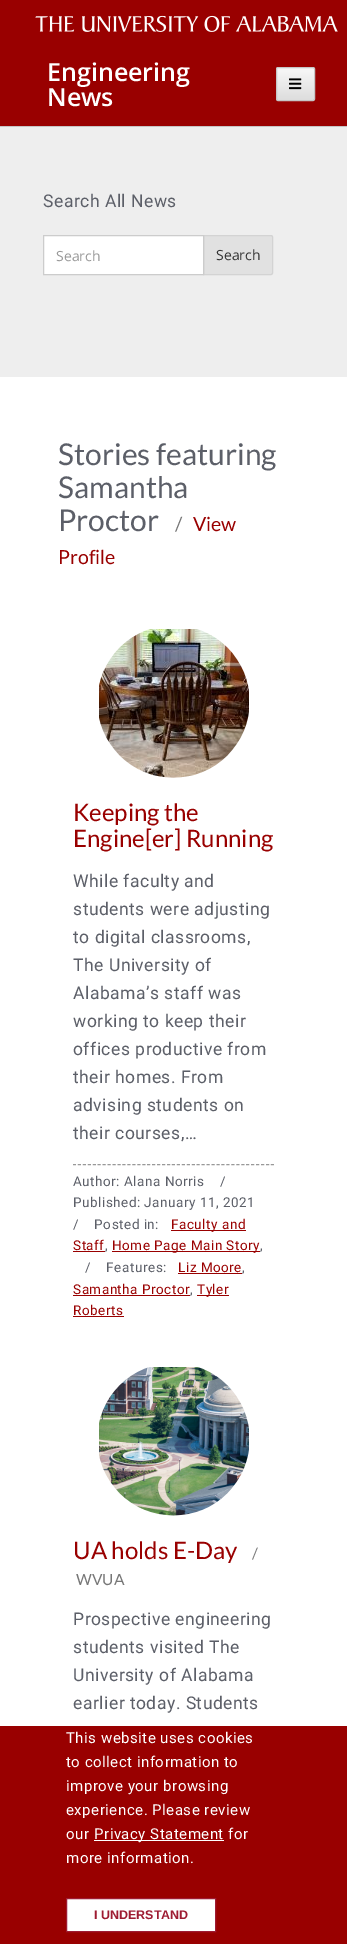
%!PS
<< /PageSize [347 1944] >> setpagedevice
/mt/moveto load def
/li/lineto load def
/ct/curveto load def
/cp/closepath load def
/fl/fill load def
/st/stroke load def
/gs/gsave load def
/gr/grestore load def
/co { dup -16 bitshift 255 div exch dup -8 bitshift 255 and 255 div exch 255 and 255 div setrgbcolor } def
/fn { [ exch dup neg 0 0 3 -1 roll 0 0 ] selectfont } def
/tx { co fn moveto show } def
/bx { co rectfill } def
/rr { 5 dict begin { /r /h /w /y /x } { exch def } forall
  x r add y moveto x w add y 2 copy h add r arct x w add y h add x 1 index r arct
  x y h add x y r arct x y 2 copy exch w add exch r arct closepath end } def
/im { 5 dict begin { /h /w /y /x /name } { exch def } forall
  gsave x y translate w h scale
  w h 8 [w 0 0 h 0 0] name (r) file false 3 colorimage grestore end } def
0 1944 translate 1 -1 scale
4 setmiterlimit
0 0 347 1944 16#FFFFFF bx
0 0 347 126 16#990000 bx
(media/1.raw) 35 15 303 17 im
0 126 347 1 16#C6C6C6 bx
gs
276 67 39 34 2 rr clip newpath
gs 276 68 mt 315 68 li 315 100 li 276 100 li cp clip newpath
<< /ShadingType 2 /ColorSpace /DeviceRGB /Coords [296 68 296 100] /Extend [true true] /Function << /FunctionType 2 /Domain [0 1] /C0 [.973 .973 .973] /C1 [.867 .867 .867] /N 1 >> >> shfill gr
gr
276.5 67.5 38 33 1.5 rr st
(media/2.raw) 289 78 13 12 im
0 127 347 250 16#EEEEEE bx
16#E1E1E1 co
203.5 235.5 mt 271 235.5 li 272 235.5 272.5 236 272.5 237 ct 272.5 273 li 272.5 274 272 274.5 271 274.5 ct 203.5 274.5 li cp gs fl gr
16#D3D3D3 co
st
16#FFFFFF co
43.5 235.5 mt 203.5 235.5 li 203.5 274.5 li 43.5 274.5 li cp gs fl gr
16#CCCCCC co
st
(media/3.raw) 99 629 150 149 im
16#999999 co
[3 1.95] 0 setdash
73 1164.5 mt 274 1164.5 li st
171 1230 75 1 16#990000 bx
73 1251 32 1 16#990000 bx
112 1251 148 1 16#990000 bx
178 1273 64 1 16#990000 bx
73 1295 117 1 16#990000 bx
197 1295 32 1 16#990000 bx
73 1316 51 1 16#990000 bx
(media/4.raw) 99 1367 150 149 im
0 1726 347 218 16#990000 bx
94 1840 130 1 16#FFFFFF bx
66.5 1898.5 mt 215.5 1898.5 li 215.5 1931.5 li 66.5 1931.5 li cp gs fl gr
16#9E1B32 co
[] 0 setdash
st
(Engineering) 47 81 /OpenSans-SemiBold 25 16#FFFFFF tx
(News) 47 106 /OpenSans-SemiBold 25 16#FFFFFF tx
/Roboto-Regular 17.5 fn
16#5C5F68 co
43 207 mt .5 0 (Search All News) ashow
(Search) 56 261 /OpenSans-Regular 14 16#999999 tx
(Search) 216 260 /OpenSans-Regular 14 16#333333 tx
(Stories featuring) 58 465 /Lato-Regular 30 16#5C5F68 tx
(Samantha) 58 498 /Lato-Regular 30 16#5C5F68 tx
(Proctor) 58 531 /Lato-Regular 30 16#5C5F68 tx
(/) 175 531 /Lato-Regular 19.5 16#777777 tx
(View) 193 531 /Lato-Regular 19.5 16#990000 tx
(Profile) 58 564 /Lato-Regular 19.5 16#990000 tx
(Keeping the) 73 821 /Lato-Regular 24 16#990000 tx
(Engine[er] Running) 73 847 /Lato-Regular 24 16#990000 tx
/Roboto-Regular 17.5 fn
16#5C5F68 co
73 887 mt .5 0 (While faculty and) ashow
73 915 mt .5 0 (students were adjusting) ashow
73 943 mt .5 0 (to digital classrooms,) ashow
73 971 mt .5 0 (The University of) ashow
73 999 mt .5 0 (Alabama’s staff was) ashow
73 1027 mt .5 0 (working to keep their) ashow
73 1055 mt .5 0 (offices productive from) ashow
73 1083 mt .5 0 (their homes. From) ashow
73 1111 mt .5 0 (advising students on) ashow
73 1139 mt .5 0 (their courses,…) ashow
/Roboto-Regular 13.5 fn
73 1186 mt .5 0 (Author: Alana Norris    /) ashow
73 1207 mt .5 0 (Published: January 11, 2021) ashow
73 1229 mt .5 0 (/    Posted in:) ashow
16#990000 co
171 1229 mt .5 0 (Faculty and) ashow
73 1250 mt .5 0 (Staff) ashow
16#5C5F68 co
105 1250 mt .5 0 (,) ashow
16#990000 co
112 1250 mt .5 0 (Home Page Main Story) ashow
16#5C5F68 co
260 1250 mt .5 0 (,) ashow
85 1272 mt .5 0 (/    Features:) ashow
16#990000 co
178 1272 mt .5 0 (Liz Moore) ashow
16#5C5F68 co
242 1272 mt .5 0 (,) ashow
16#990000 co
73 1294 mt .5 0 (Samantha Proctor) ashow
16#5C5F68 co
190 1294 mt .5 0 (,) ashow
16#990000 co
197 1294 mt .5 0 (Tyler) ashow
73 1315 mt .5 0 (Roberts) ashow
(UA holds E-Day) 73 1559 /Lato-Regular 24 16#990000 tx
(/) 252 1559 /Lato-Regular 15.5 16#777777 tx
(WVUA) 76 1585 /Lato-Regular 15.5 16#777777 tx
/Roboto-Regular 17.5 fn
16#5C5F68 co
73 1625 mt .5 0 (Prospective engineering) ashow
73 1653 mt .5 0 (students visited The) ashow
73 1681 mt .5 0 (University of Alabama) ashow
73 1709 mt .5 0 (earlier today. Students) ashow
/Roboto-Regular 15 fn
16#FFFFFF co
66 1743 mt .5 0 (This website uses cookies) ashow
66 1767 mt .5 0 (to collect information to) ashow
66 1791 mt .5 0 (improve your browsing) ashow
66 1815 mt .5 0 (experience. Please review) ashow
66 1839 mt .5 0 (our) ashow
94 1839 mt .5 0 (Privacy Statement for) ashow
66 1863 mt .5 0 (more information.) ashow
(I UNDERSTAND) 94 1919 /LiberationSans-Bold 12.5 16#9E1B32 tx
showpage
